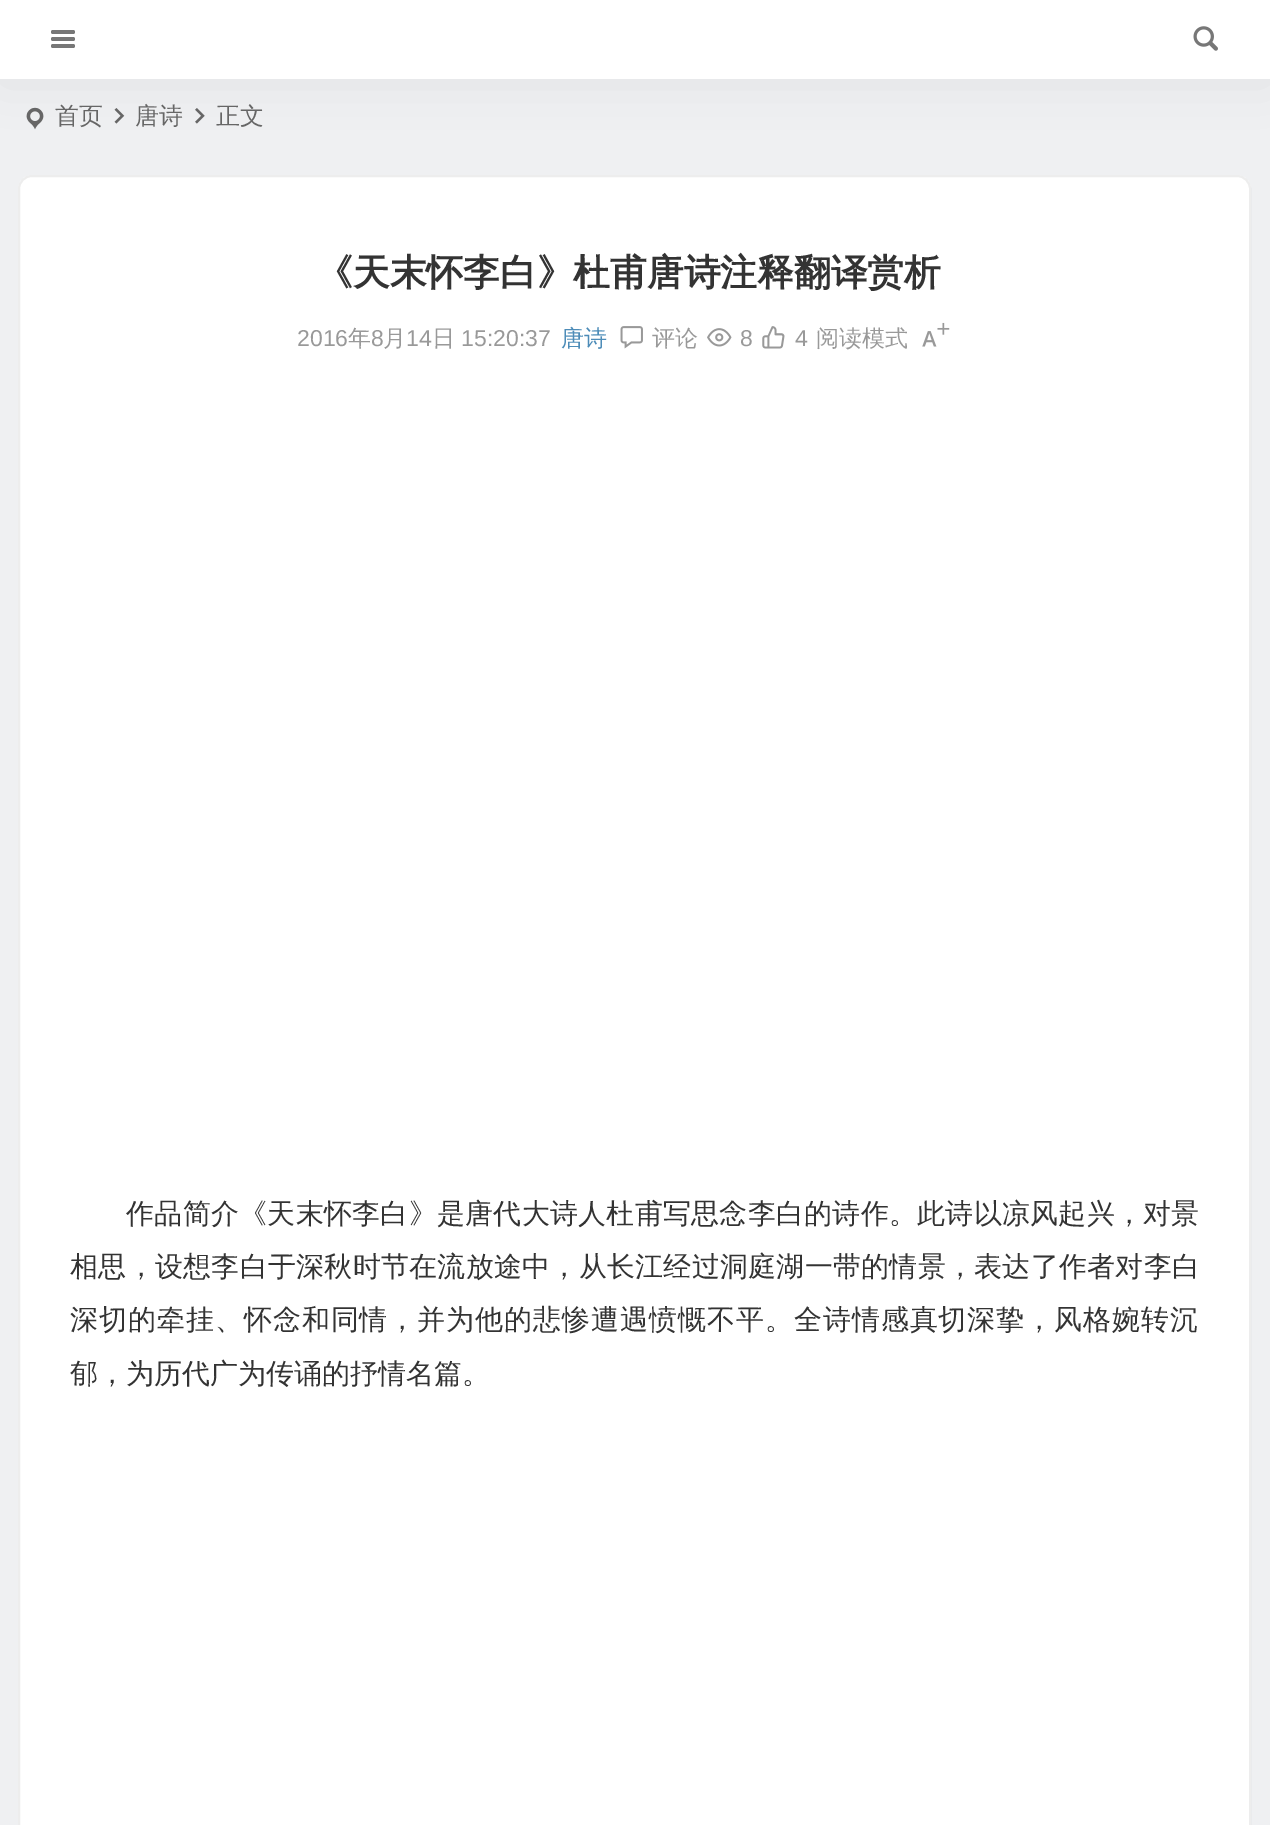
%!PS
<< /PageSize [1270 1825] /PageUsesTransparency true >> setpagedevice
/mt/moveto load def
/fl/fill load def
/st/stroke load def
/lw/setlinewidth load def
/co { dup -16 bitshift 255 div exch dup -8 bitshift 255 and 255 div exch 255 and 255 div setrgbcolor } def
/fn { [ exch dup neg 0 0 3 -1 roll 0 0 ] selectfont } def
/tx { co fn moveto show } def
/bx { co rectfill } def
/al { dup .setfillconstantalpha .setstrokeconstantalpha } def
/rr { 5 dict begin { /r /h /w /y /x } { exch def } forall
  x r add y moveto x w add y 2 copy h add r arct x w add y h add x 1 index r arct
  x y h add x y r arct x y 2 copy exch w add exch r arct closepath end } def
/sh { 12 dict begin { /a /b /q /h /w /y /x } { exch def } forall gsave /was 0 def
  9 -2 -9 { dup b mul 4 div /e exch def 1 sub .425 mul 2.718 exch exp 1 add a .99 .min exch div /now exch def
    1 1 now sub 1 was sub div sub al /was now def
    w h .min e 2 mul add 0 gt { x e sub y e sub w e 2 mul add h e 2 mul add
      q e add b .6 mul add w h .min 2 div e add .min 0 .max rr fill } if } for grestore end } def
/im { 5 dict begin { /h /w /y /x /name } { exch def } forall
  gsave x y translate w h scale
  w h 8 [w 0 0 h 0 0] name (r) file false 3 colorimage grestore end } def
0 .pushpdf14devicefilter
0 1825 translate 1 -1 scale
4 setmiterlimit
0 0 1270 1825 16#EFF0F2 bx
(media/2.raw) 26 107 18 23 im
(media/3.raw) 114 108 11 16 im
(media/4.raw) 195 108 10 16 im
16#000000 co
0 5 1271 79 0 26 .06 sh
0 0 1270 79 16#FFFFFF bx
16#777777 co
51 37 24 4 2 rr fl
51 30 24 4 2 rr fl
51 44 24 4 2 rr fl
(media/1.raw) 1193 26 25 25 im
16#FFFFFF co
18 175 1233 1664 14 rr fl
0.07 al
16#000000 co
2 lw
19 176 1231 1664 13 rr st
1 al
(media/5.raw) 620 326 23 23 im
(media/6.raw) 707 328 25 19 im
(media/7.raw) 762 326 23 23 im
(media/8.raw) 937 322 13 13 im
(media/9.raw) 922 331 15 16 im
(首页) 55 124 /WenQuanYiZenHei-Medium 24 16#666666 tx
(唐诗) 135 124 /WenQuanYiZenHei-Medium 24 16#666666 tx
(正文) 216 124 /WenQuanYiZenHei-Medium 24 16#666666 tx
(《天末怀李白》杜甫唐诗注释翻译赏析) 316 285 /WenQuanYiZenHei-Bold 36.75 16#333333 tx
(2016) 297 346 /LiberationSans-Regular 23 16#999999 tx
(年) 348 346 /WenQuanYiZenHei-Medium 23 16#999999 tx
(8) 371 346 /LiberationSans-Regular 23 16#999999 tx
(月) 383 346 /WenQuanYiZenHei-Medium 23 16#999999 tx
(14) 406 346 /LiberationSans-Regular 23 16#999999 tx
(日) 432 346 /WenQuanYiZenHei-Medium 23 16#999999 tx
(15:20:37) 461 346 /LiberationSans-Regular 23 16#999999 tx
(唐诗) 561 346 /WenQuanYiZenHei-Medium 23 16#4D8CB8 tx
(评论) 652 346 /WenQuanYiZenHei-Medium 23 16#999999 tx
(8) 740 346 /LiberationSans-Regular 23 16#999999 tx
(4) 795 346 /LiberationSans-Regular 23 16#999999 tx
(阅读模式) 816 346 /WenQuanYiZenHei-Medium 23 16#999999 tx
/WenQuanYiZenHei-Medium 28 fn
16#333333 co
126 1223 mt .25 0 (作品简介《天末怀李白》是唐代大诗人杜甫写思念李白的诗作。此诗以凉风起兴，对景) ashow
70 1276 mt .25 0 (相思，设想李白于深秋时节在流放途中，从长江经过洞庭湖一带的情景，表达了作者对李白) ashow
70 1329 mt .95 0 (深切的牵挂、怀念和同情，并为他的悲惨遭遇愤慨不平。全诗情感真切深挚，风格婉转沉) ashow
(郁，为历代广为传诵的抒情名篇。) 70 1383 /WenQuanYiZenHei-Medium 28 16#333333 tx
.poppdf14devicefilter showpage
